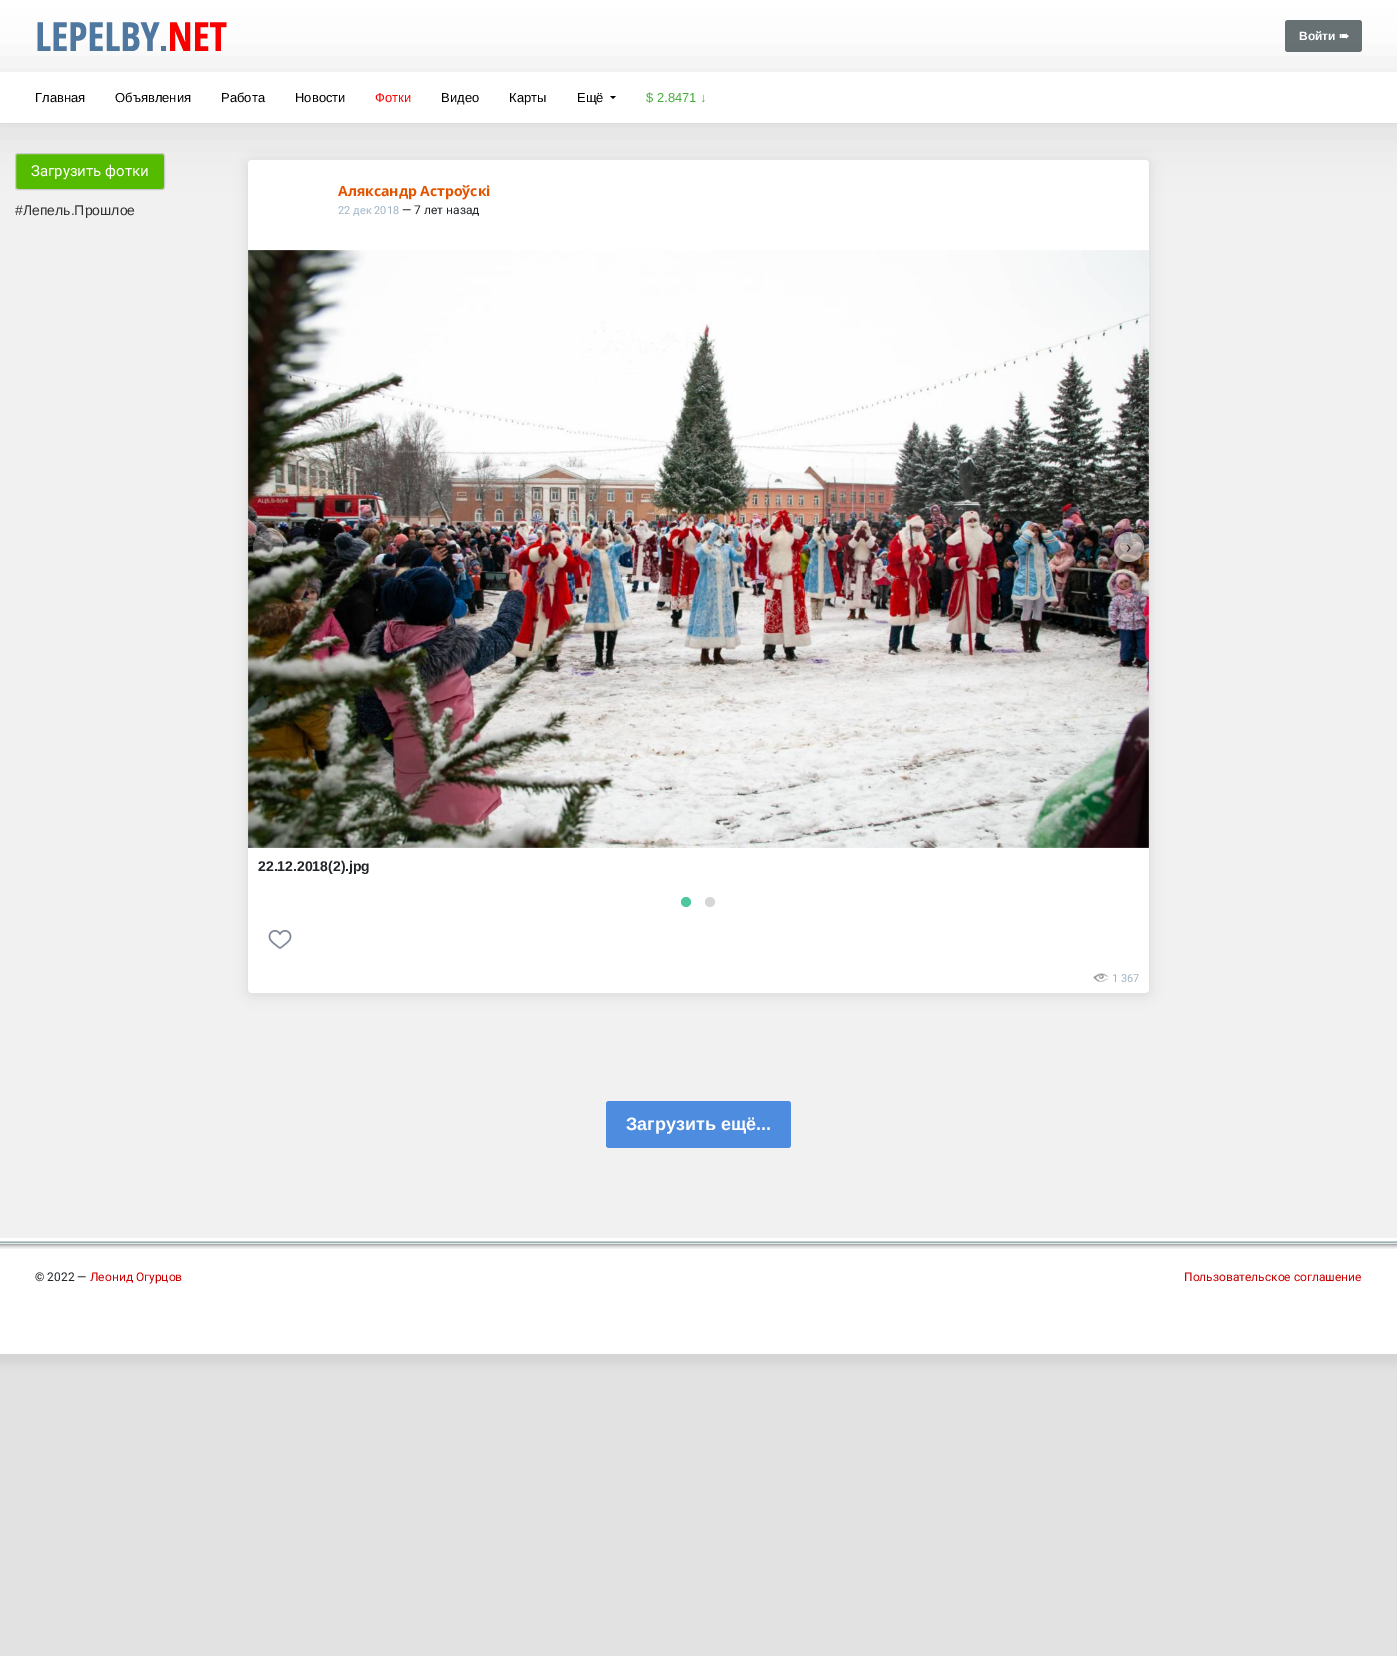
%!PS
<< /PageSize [1397 1656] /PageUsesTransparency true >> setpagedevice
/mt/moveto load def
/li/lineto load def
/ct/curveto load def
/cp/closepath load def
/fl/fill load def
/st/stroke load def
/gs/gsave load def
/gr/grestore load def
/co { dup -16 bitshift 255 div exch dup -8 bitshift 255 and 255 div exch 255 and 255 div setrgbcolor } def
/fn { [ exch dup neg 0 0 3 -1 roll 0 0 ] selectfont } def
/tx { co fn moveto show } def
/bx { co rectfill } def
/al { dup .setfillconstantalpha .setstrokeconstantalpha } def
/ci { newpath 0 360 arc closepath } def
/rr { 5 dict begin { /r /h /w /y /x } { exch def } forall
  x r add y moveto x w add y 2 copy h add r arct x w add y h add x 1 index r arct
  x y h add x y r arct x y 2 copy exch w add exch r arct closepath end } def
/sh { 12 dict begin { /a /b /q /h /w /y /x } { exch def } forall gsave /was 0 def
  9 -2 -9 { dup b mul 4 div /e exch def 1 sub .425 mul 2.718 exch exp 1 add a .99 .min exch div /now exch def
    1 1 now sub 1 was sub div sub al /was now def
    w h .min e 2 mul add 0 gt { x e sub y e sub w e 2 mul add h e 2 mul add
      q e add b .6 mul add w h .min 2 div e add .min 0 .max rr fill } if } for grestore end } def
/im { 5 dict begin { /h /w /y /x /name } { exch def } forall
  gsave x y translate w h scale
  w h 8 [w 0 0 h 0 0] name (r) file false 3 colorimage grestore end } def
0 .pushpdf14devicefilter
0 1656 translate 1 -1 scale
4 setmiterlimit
0 0 1397 1656 16#E2E2E2 bx
16#000000 co
-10 -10 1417 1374 0 5 .05 sh
0 0 1397 1354 16#FFFFFF bx
(media/1.raw) 37 22 190 29 im
16#677173 co
1285 20 77 32 3 rr fl
0 124 1397 1114 16#F1F1F1 bx
gs
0 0 mt 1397 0 li 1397 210 li 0 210 li cp 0 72 mt 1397 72 li 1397 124 li 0 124 li cp eoclip newpath
16#000000 co
-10 62 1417 72 0 25 .07 sh
gr
0 123 1397 1 16#DDDDDD bx
16#000000 co
610 96 mt 616 96 li 613 99 li cp fl
16#55BB00 co
15.5 153.5 149 36 2.5 rr gs fl gr
16#CCCCCC co
st
16#000000 co
248 162 901 833 4 7 .1 sh
16#FFFFFF co
248 160 901 833 4 rr fl
(media/2.raw) 248 250 901 598 im
gs
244 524 mt 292 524 li 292 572 li 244 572 li cp 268 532 mt 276.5 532 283 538.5 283 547 ct 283 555.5 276.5 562 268 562 ct 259.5 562 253 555.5 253 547 ct 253 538.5 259.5 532 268 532 ct cp eoclip newpath
16#000000 co
253 533 30 30 15 2.5 .2 sh
gr
0.25 al
268 547 15 ci fl
gs
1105 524 mt 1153 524 li 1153 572 li 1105 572 li cp 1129 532 mt 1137.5 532 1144 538.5 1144 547 ct 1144 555.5 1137.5 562 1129 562 ct 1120.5 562 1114 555.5 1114 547 ct 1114 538.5 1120.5 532 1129 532 ct cp eoclip newpath
1 al
16#000000 co
1114 533 30 30 15 2.5 .4 sh
gr
0.5 al
1129 547 15 ci fl
1 al
16#4DC7A0 co
686 902 5 ci fl
16#D6D6D6 co
710 902 5 ci fl
(media/3.raw) 268 929 24 20 im
(media/4.raw) 1093 973 16 9 im
16#4D8CDF co
606 1101 185 47 3 rr fl
(media/5.raw) 0 1241 1397 8 im
(Войти) 1299 40 /LiberationSans-Bold 12 16#FFFFFF tx
(➠) 1339 40 /DejaVuSans-Bold 12 16#FFFFFF tx
(Главная) 35 102 /LiberationSans-Regular 13 16#000000 tx
(Объявления) 115 102 /LiberationSans-Regular 13 16#000000 tx
(Работа) 221 102 /LiberationSans-Regular 13 16#000000 tx
(Новости) 295 102 /LiberationSans-Regular 13 16#000000 tx
(Фотки) 375 102 /LiberationSans-Regular 13 16#FF0000 tx
(Видео) 441 102 /LiberationSans-Regular 13 16#000000 tx
(Карты) 509 102 /LiberationSans-Regular 13 16#000000 tx
(Ещё) 577 102 /LiberationSans-Regular 13 16#000000 tx
($ 2.8471 ↓) 646 102 /LiberationSans-Regular 13 16#44AE3B tx
(Загрузить фотки) 31 176 /Roboto-Regular 15 16#FFFFFF tx
(#Лепель.Прошлое) 15 215 /LiberationSans-Regular 14 16#333333 tx
(Аляксандр Астроўскі) 338 196 /OpenSans-Bold 14 16#E15400 tx
(22 дек 2018) 338 214 /Roboto-Regular 11 16#9DB3C4 tx
(— 7 лет назад) 402 214 /Roboto-Regular 12 16#212529 tx
(‹) 265 553 /Roboto-Regular 18 16#424344 tx
(›) 1126 553 /Roboto-Regular 18 16#212529 tx
(22.12.2018\(2\).jpg) 258 871 /LiberationSans-Bold 14 16#212529 tx
(1 367) 1112 982 /Roboto-Regular 11 16#9DB3C4 tx
(Загрузить ещё...) 626 1130 /LiberationSans-Bold 18 16#FFFFFF tx
(© 2022 —) 35 1281 /Roboto-Regular 12 16#212529 tx
(Леонид Огурцов) 90 1281 /Roboto-Regular 12 16#CC0000 tx
(Пользовательское соглашение) 1184 1281 /Roboto-Regular 12 16#CC0000 tx
.poppdf14devicefilter showpage
